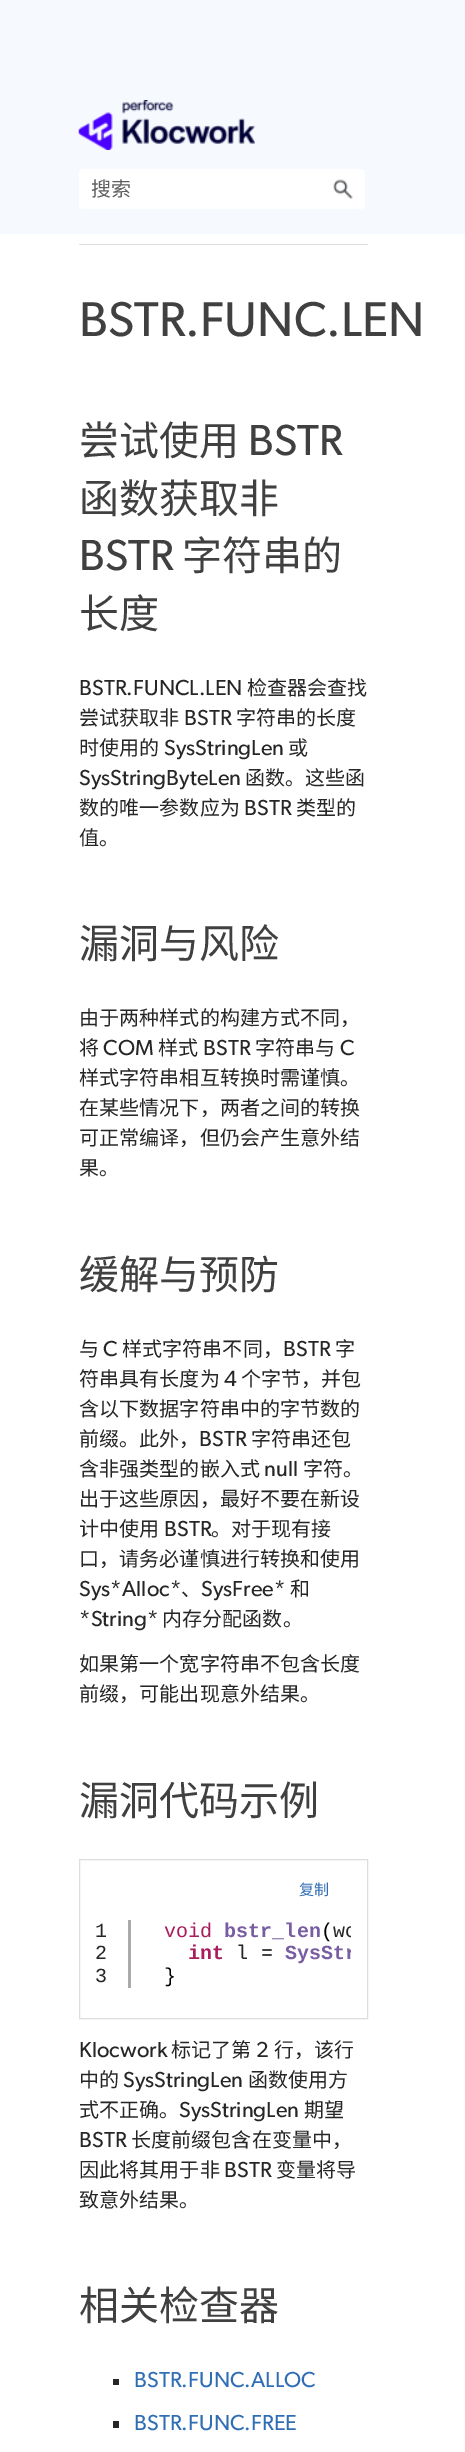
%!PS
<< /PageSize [465 2452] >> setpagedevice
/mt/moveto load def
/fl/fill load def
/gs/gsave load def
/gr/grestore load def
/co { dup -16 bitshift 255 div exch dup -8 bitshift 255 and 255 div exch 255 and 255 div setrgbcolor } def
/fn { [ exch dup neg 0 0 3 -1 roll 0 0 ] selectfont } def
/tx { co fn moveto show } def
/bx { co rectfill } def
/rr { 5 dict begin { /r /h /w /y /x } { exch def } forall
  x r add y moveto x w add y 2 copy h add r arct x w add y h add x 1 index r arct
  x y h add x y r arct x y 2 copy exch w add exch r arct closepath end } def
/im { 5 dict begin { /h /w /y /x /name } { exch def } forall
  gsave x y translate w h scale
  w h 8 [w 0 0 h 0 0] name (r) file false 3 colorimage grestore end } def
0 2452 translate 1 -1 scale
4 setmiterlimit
0 0 465 2452 16#FFFFFF bx
0 0 465 234 16#F6F9FD bx
(media/1.raw) 78 100 177 50 im
16#FFFFFF co
79 169 286 40 4 rr fl
(media/2.raw) 333 179 20 21 im
79 244 289 1 16#DDE0E3 bx
16#DDDDDD co
79.5 1859.5 288 159 rectstroke
128 1920 3 68 16#AAAAAA bx
113 2379 6 6 16#262626 bx
113 2421 6 7 16#262626 bx
(搜索) 91 196 /NotoSansCJKSC-Regular 20 16#5F5F5F tx
/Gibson-Regular 45 fn
16#404040 co
79 336 mt .1 0 (BSTR.FUNC.LEN) ashow
/NotoSansCJKSC-Regular 40 fn
79 455 mt .1 0 (尝试使用) ashow
/Gibson-Regular 40 fn
248 455 mt .1 0 (BSTR) ashow
/NotoSansCJKSC-Regular 40 fn
79 513 mt .1 0 (函数获取非) ashow
/Gibson-Regular 40 fn
79 570 mt .1 0 (BSTR) ashow
/NotoSansCJKSC-Regular 40 fn
182 570 mt .1 0 (字符串的) ashow
79 628 mt .1 0 (长度) ashow
/Gibson-Regular 20 fn
16#262626 co
79 695 mt .1 0 (BSTR.FUNCL.LEN) ashow
/NotoSansCJKSC-Regular 20 fn
247 695 mt .1 0 (检查器会查找) ashow
79 725 mt .1 0 (尝试获取非) ashow
/Gibson-Regular 20 fn
184 725 mt .1 0 (BSTR) ashow
/NotoSansCJKSC-Regular 20 fn
236 725 mt .1 0 (字符串的长度) ashow
79 755 mt .1 0 (时使用的) ashow
/Gibson-Regular 20 fn
164 755 mt .1 0 (SysStringLen) ashow
/NotoSansCJKSC-Regular 20 fn
288 755 mt .1 0 (或) ashow
/Gibson-Regular 20 fn
79 785 mt .1 0 (SysStringByteLen) ashow
/NotoSansCJKSC-Regular 20 fn
245 785 mt .1 0 (函数。这些函) ashow
79 815 mt .1 0 (数的唯一参数应为) ashow
/Gibson-Regular 20 fn
244 815 mt .1 0 (BSTR) ashow
/NotoSansCJKSC-Regular 20 fn
296 815 mt .1 0 (类型的) ashow
79 845 mt .1 0 (值。) ashow
/NotoSansCJKSC-Regular 40 fn
16#404040 co
79 958 mt .1 0 (漏洞与风险) ashow
/NotoSansCJKSC-Regular 20 fn
16#262626 co
79 1025 mt .1 0 (由于两种样式的构建方式不同，) ashow
79 1055 mt .1 0 (将) ashow
/Gibson-Regular 20 fn
103 1055 mt .1 0 (COM) ashow
/NotoSansCJKSC-Regular 20 fn
158 1055 mt .1 0 (样式) ashow
/Gibson-Regular 20 fn
203 1055 mt .1 0 (BSTR) ashow
/NotoSansCJKSC-Regular 20 fn
255 1055 mt .1 0 (字符串与) ashow
/Gibson-Regular 20 fn
340 1055 mt .1 0 (C) ashow
/NotoSansCJKSC-Regular 20 fn
79 1085 mt .1 0 (样式字符串相互转换时需谨慎。) ashow
79 1115 mt .1 0 (在某些情况下，两者之间的转换) ashow
79 1145 mt .1 0 (可正常编译，但仍会产生意外结) ashow
79 1175 mt .1 0 (果。) ashow
/NotoSansCJKSC-Regular 40 fn
16#404040 co
79 1289 mt .1 0 (缓解与预防) ashow
/NotoSansCJKSC-Regular 20 fn
16#262626 co
79 1356 mt .1 0 (与) ashow
/Gibson-Regular 20 fn
103 1356 mt .1 0 (C) ashow
/NotoSansCJKSC-Regular 20 fn
122 1356 mt .1 0 (样式字符串不同，) ashow
/Gibson-Regular 20 fn
283 1356 mt .1 0 (BSTR) ashow
/NotoSansCJKSC-Regular 20 fn
335 1356 mt .1 0 (字) ashow
79 1386 mt .1 0 (符串具有长度为) ashow
/Gibson-Regular 20 fn
224 1386 mt .1 0 (4) ashow
/NotoSansCJKSC-Regular 20 fn
241 1386 mt .1 0 (个字节，并包) ashow
79 1416 mt .1 0 (含以下数据字符串中的字节数的) ashow
79 1446 mt .1 0 (前缀。此外，) ashow
/Gibson-Regular 20 fn
199 1446 mt .1 0 (BSTR) ashow
/NotoSansCJKSC-Regular 20 fn
251 1446 mt .1 0 (字符串还包) ashow
79 1476 mt .1 0 (含非强类型的嵌入式) ashow
/Gibson-Regular 20 fn
264 1476 mt .1 0 (null) ashow
/NotoSansCJKSC-Regular 20 fn
303 1476 mt .1 0 (字符。) ashow
79 1506 mt .1 0 (出于这些原因，最好不要在新设) ashow
79 1536 mt .1 0 (计中使用) ashow
/Gibson-Regular 20 fn
164 1536 mt .1 0 (BSTR) ashow
/NotoSansCJKSC-Regular 20 fn
211 1536 mt .1 0 (。对于现有接) ashow
79 1566 mt .1 0 (口，请务必谨慎进行转换和使用) ashow
/Gibson-Regular 20 fn
79 1596 mt .1 0 (Sys*Alloc*) ashow
/NotoSansCJKSC-Regular 20 fn
181 1596 mt .1 0 (、) ashow
/Gibson-Regular 20 fn
201 1596 mt .1 0 (SysFree*) ashow
/NotoSansCJKSC-Regular 20 fn
290 1596 mt .1 0 (和) ashow
/Gibson-Regular 20 fn
79 1626 mt .1 0 (*String*) ashow
/NotoSansCJKSC-Regular 20 fn
162 1626 mt .1 0 (内存分配函数。) ashow
79 1671 mt .1 0 (如果第一个宽字符串不包含长度) ashow
79 1701 mt .1 0 (前缀，可能出现意外结果。) ashow
/NotoSansCJKSC-Regular 40 fn
16#404040 co
79 1815 mt .1 0 (漏洞代码示例) ashow
/NotoSansCJKSC-Regular 15 fn
16#2F6DB5 co
299 1895 mt .1 0 (复制) ashow
/LiberationMono-Regular 20 fn
16#262626 co
95 1937 mt .1 0 (1) ashow
95 1959 mt .1 0 (2) ashow
95 1982 mt .1 0 (3) ashow
16#A71D5D co
164 1937 mt .1 0 (void) ashow
/LiberationMono-Bold 20 fn
16#795DA3 co
224 1937 mt .1 0 (bstr_len) ashow
/LiberationMono-Regular 20 fn
16#000000 co
321 1937 mt .1 0 (\() ashow
gs
95 1905 256 98 rectclip
16#262626 co
333 1937 mt .1 0 (wc) ashow
gr
/LiberationMono-Bold 20 fn
16#A71D5D co
188 1959 mt .1 0 (int) ashow
/LiberationMono-Regular 20 fn
16#262626 co
236 1959 mt .1 0 (l) ashow
16#000000 co
261 1959 mt .1 0 (=) ashow
gs
95 1905 256 98 rectclip
/LiberationMono-Bold 20 fn
16#795DA3 co
285 1959 mt .1 0 (SysStr) ashow
gr
164 1982 mt .1 0 (}) ashow
/Gibson-Regular 20 fn
16#262626 co
79 2057 mt .1 0 (Klocwork) ashow
/NotoSansCJKSC-Regular 20 fn
171 2057 mt .1 0 (标记了第) ashow
/Gibson-Regular 20 fn
256 2057 mt .1 0 (2) ashow
/NotoSansCJKSC-Regular 20 fn
274 2057 mt .1 0 (行，该行) ashow
79 2087 mt .1 0 (中的) ashow
/Gibson-Regular 20 fn
123 2087 mt .1 0 (SysStringLen) ashow
/NotoSansCJKSC-Regular 20 fn
248 2087 mt .1 0 (函数使用方) ashow
79 2117 mt .1 0 (式不正确。) ashow
/Gibson-Regular 20 fn
179 2117 mt .1 0 (SysStringLen) ashow
/NotoSansCJKSC-Regular 20 fn
304 2117 mt .1 0 (期望) ashow
/Gibson-Regular 20 fn
79 2147 mt .1 0 (BSTR) ashow
/NotoSansCJKSC-Regular 20 fn
131 2147 mt .1 0 (长度前缀包含在变量中，) ashow
79 2177 mt .1 0 (因此将其用于非) ashow
/Gibson-Regular 20 fn
224 2177 mt .1 0 (BSTR) ashow
/NotoSansCJKSC-Regular 20 fn
276 2177 mt .1 0 (变量将导) ashow
79 2207 mt .1 0 (致意外结果。) ashow
/NotoSansCJKSC-Regular 40 fn
16#404040 co
79 2320 mt .1 0 (相关检查器) ashow
/Gibson-Regular 20 fn
16#2F6DB5 co
134 2387 mt .1 0 (BSTR.FUNC.ALLOC) ashow
134 2430 mt .1 0 (BSTR.FUNC.FREE) ashow
showpage
